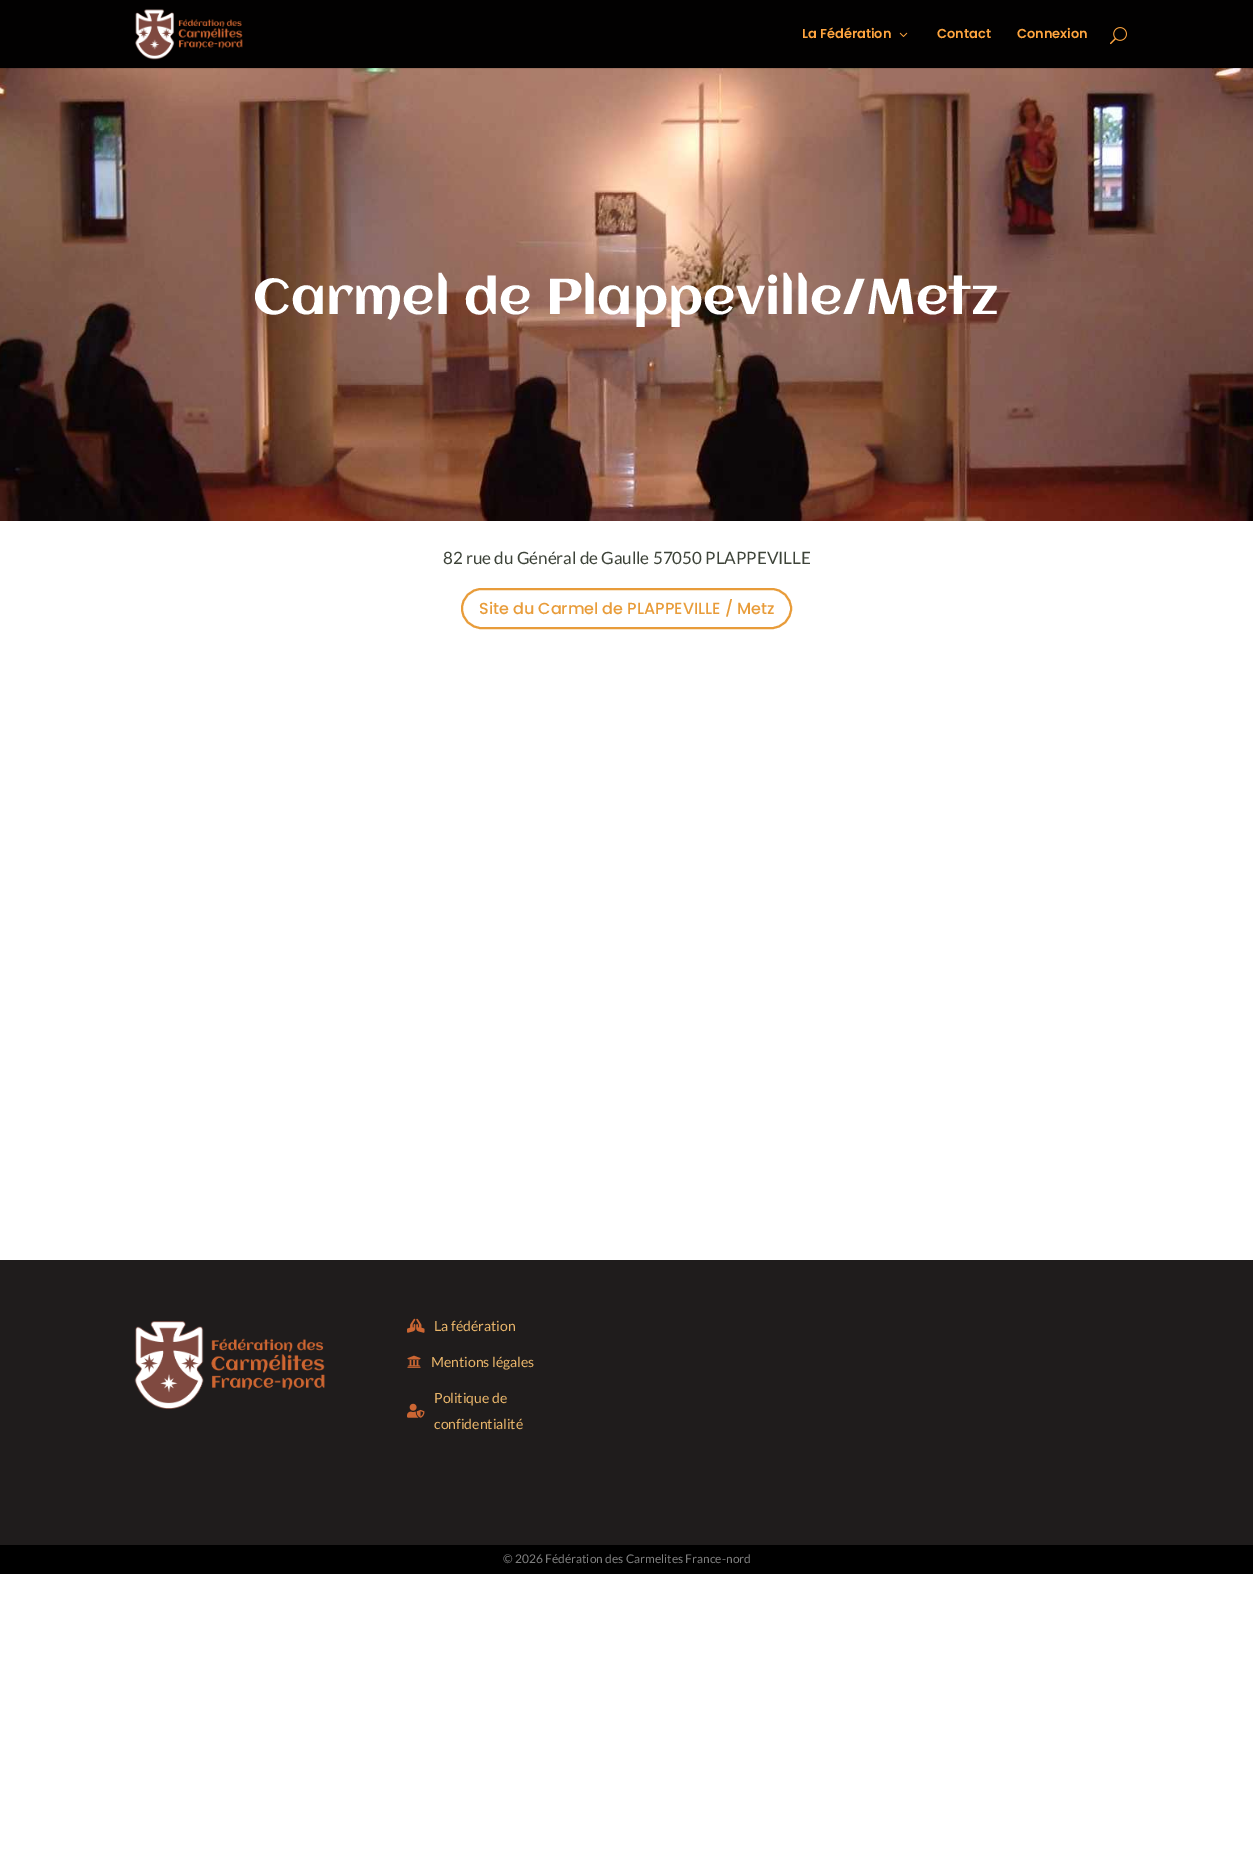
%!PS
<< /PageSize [1253 1873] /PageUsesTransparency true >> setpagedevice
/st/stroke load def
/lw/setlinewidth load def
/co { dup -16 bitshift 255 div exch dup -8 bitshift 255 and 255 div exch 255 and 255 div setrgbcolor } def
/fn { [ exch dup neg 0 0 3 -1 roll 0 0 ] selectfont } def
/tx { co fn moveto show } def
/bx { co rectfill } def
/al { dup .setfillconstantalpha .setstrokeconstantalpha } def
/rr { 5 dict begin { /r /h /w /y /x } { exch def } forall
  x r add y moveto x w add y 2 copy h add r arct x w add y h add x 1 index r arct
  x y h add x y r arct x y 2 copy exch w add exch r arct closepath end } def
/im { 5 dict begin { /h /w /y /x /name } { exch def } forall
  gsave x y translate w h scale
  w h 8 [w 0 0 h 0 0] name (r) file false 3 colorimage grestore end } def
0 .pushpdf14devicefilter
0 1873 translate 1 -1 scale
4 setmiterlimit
0 0 1253 1873 16#FFFFFF bx
(media/4.raw) 0 68 1253 453 im
0.1 al
0 68 1253 1 16#000000 bx
1 al
0 0 1253 68 16#020101 bx
(media/1.raw) 135 9 108 51 im
(media/2.raw) 899 32 9 5 im
(media/3.raw) 1110 27 17 18 im
16#E89C3A co
2 lw
462 589 329 39 19.5 rr st
0 1260 1253 285 16#1F1C1C bx
(media/5.raw) 134 1321 191 88 im
(media/6.raw) 407 1318 18 15 im
(media/7.raw) 407 1355 14 13 im
(media/8.raw) 407 1403 18 15 im
0 1545 1253 29 16#000000 bx
(La Fédération) 802 38 /Poppins-SemiBold 13 16#FFA53F tx
(Contact) 937 38 /Poppins-SemiBold 13 16#FFA53F tx
(Connexion) 1017 38 /Poppins-SemiBold 13 16#FFA53F tx
(Carmel de Plappeville/Metz) 253 314 /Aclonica-Regular 50 16#FFFFFF tx
(82 rue du Général de Gaulle 57050 PLAPPEVILLE) 443 564 /Lato-Regular 17 16#3D4339 tx
(Site du Carmel de PLAPPEVILLE / Metz) 479 614 /Poppins-Medium 16 16#E89C3A tx
(La fédération) 434 1331 /Lato-Regular 14 16#E9B56A tx
(Mentions légales) 431 1367 /Lato-Regular 14 16#E9B56A tx
(Politique de) 434 1403 /Lato-Regular 14 16#E9B56A tx
(confidentialité) 434 1429 /Lato-Regular 14 16#E9B56A tx
(© 2026 Fédération des Carmelites France-nord) 503 1563 /Lato-Regular 12 16#808080 tx
.poppdf14devicefilter showpage
